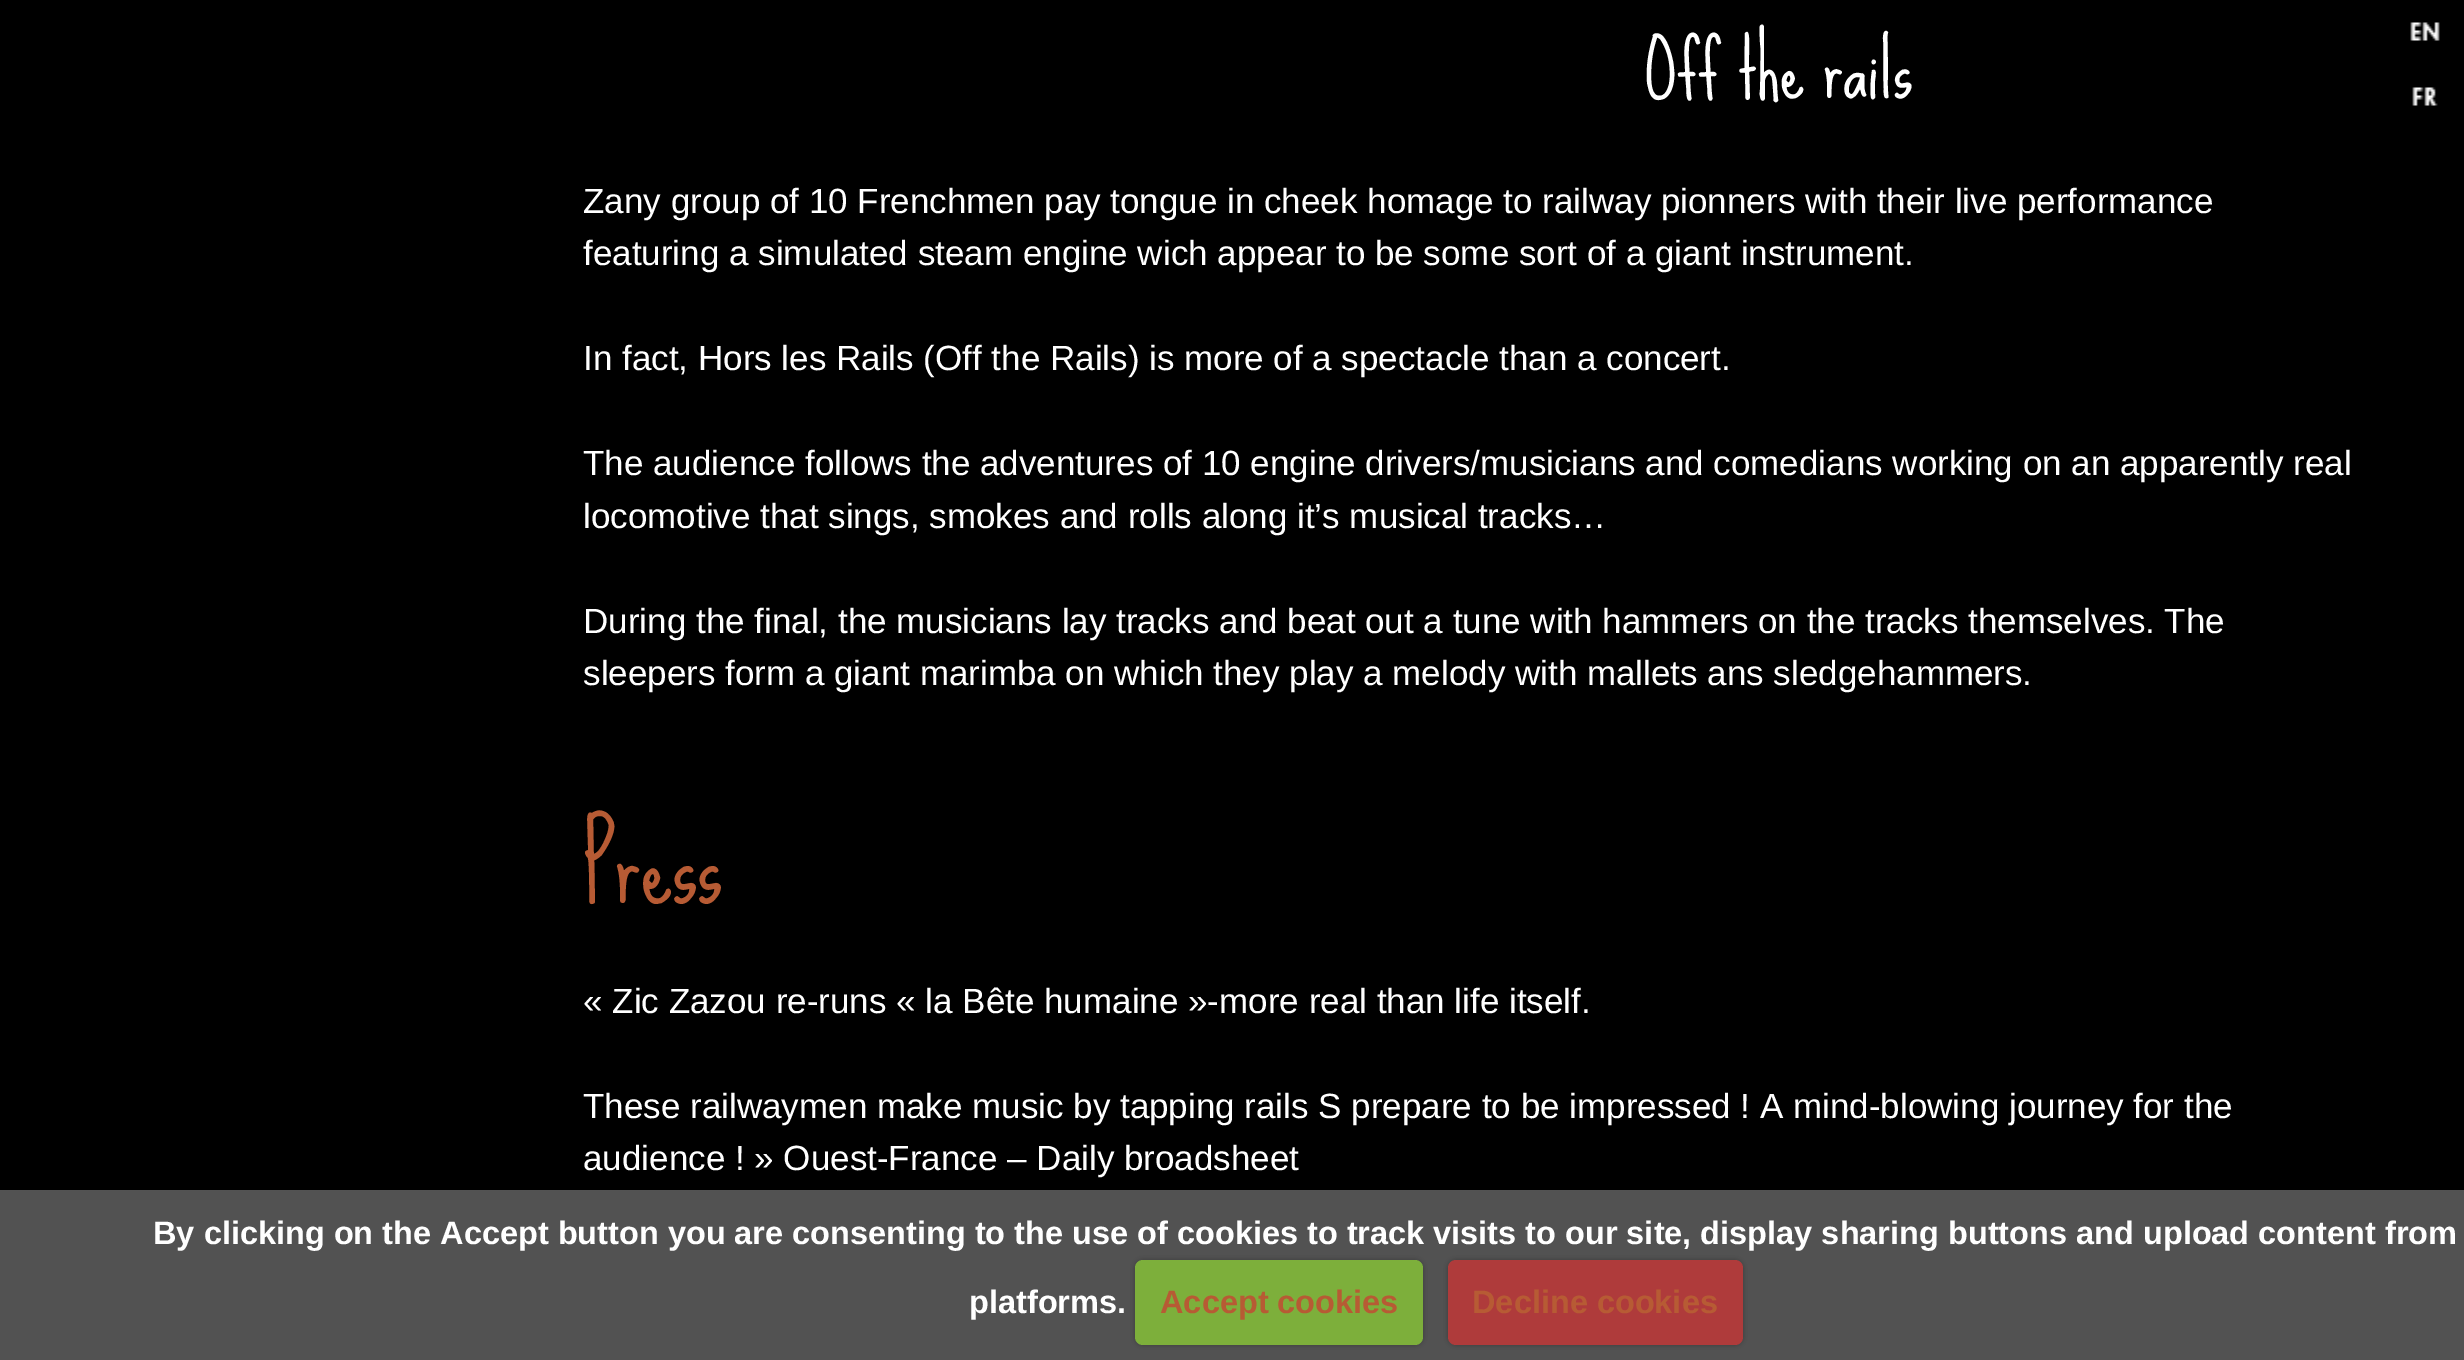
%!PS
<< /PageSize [2464 1360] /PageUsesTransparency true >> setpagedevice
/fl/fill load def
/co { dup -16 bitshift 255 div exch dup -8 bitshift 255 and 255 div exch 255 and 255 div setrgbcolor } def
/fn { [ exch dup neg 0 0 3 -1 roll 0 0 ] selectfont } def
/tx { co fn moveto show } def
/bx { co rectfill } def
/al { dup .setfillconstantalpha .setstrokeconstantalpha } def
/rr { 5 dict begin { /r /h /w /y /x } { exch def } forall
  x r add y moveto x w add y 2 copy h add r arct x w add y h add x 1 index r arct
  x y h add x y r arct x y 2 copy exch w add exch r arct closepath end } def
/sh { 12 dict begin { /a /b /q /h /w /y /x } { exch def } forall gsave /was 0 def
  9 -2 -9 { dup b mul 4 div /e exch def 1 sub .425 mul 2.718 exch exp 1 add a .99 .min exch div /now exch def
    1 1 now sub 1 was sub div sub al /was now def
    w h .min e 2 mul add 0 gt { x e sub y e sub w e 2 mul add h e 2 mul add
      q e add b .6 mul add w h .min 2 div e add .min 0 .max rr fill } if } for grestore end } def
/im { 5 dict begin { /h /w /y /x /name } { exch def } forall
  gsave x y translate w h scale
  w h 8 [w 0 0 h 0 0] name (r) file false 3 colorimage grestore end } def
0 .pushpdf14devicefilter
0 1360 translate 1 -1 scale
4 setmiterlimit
0 0 2464 1360 16#000000 bx
0 1190 2464 170 16#525252 bx
(media/1.raw) 2410 22 30 19 im
(media/2.raw) 2412 87 26 19 im
16#000000 co
1135 1260 288 85 8 2.5 .25 sh
16#7DAF3B co
1135 1260 288 85 8 rr fl
16#000000 co
1448 1260 295 85 8 2.5 .25 sh
16#AF3B3B co
1448 1260 295 85 8 rr fl
(Off the rails) 1645 98 /SueEllenFrancisco-Regular 70 16#FFFFFF tx
(Zany group of 10 Frenchmen pay tongue in cheek homage to railway pionners with their live performance) 583 213 /LiberationSans-Regular 35 16#FFFFFF tx
(featuring a simulated steam engine wich appear to be some sort of a giant instrument.) 583 265 /LiberationSans-Regular 35 16#FFFFFF tx
(In fact, Hors les Rails \(Off the Rails\) is more of a spectacle than a concert.) 583 370 /LiberationSans-Regular 35 16#FFFFFF tx
(The audience follows the adventures of 10 engine drivers/musicians and comedians working on an apparently real) 583 475 /LiberationSans-Regular 35 16#FFFFFF tx
(locomotive that sings, smokes and rolls along it’s musical tracks…) 583 528 /LiberationSans-Regular 35 16#FFFFFF tx
(During the final, the musicians lay tracks and beat out a tune with hammers on the tracks themselves. The) 583 633 /LiberationSans-Regular 35 16#FFFFFF tx
(sleepers form a giant marimba on which they play a melody with mallets ans sledgehammers.) 583 685 /LiberationSans-Regular 35 16#FFFFFF tx
(Press) 583 903 /SueEllenFrancisco-Regular 90 16#B75B34 tx
(« Zic Zazou re-runs « la Bête humaine »-more real than life itself.) 583 1013 /LiberationSans-Regular 35 16#FFFFFF tx
(These railwaymen make music by tapping rails S prepare to be impressed ! A mind-blowing journey for the) 583 1118 /LiberationSans-Regular 35 16#FFFFFF tx
(audience ! » Ouest-France – Daily broadsheet) 583 1170 /LiberationSans-Regular 35 16#FFFFFF tx
(By clicking on the Accept button you are consenting to the use of cookies to track visits to our site, display sharing buttons and upload content from) 153 1244 /LiberationSans-Bold 32.5 16#FFFFFF tx
(platforms.) 969 1313 /LiberationSans-Bold 32.5 16#FFFFFF tx
(Accept cookies) 1160 1313 /LiberationSans-Bold 32.5 16#B75B34 tx
(Decline cookies) 1472 1313 /LiberationSans-Bold 32.5 16#B75B34 tx
.poppdf14devicefilter showpage
